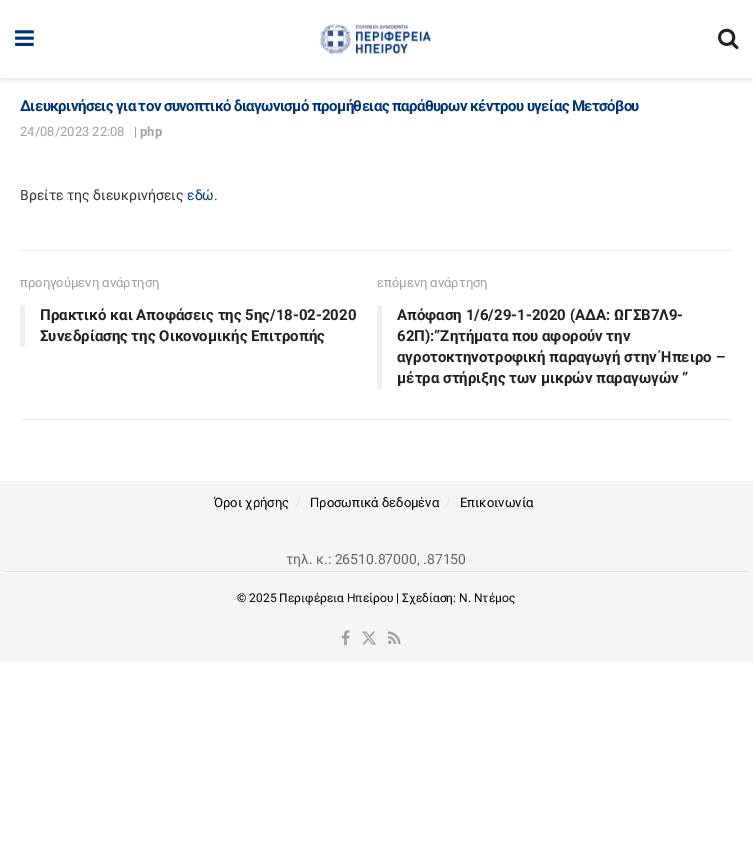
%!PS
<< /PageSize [753 855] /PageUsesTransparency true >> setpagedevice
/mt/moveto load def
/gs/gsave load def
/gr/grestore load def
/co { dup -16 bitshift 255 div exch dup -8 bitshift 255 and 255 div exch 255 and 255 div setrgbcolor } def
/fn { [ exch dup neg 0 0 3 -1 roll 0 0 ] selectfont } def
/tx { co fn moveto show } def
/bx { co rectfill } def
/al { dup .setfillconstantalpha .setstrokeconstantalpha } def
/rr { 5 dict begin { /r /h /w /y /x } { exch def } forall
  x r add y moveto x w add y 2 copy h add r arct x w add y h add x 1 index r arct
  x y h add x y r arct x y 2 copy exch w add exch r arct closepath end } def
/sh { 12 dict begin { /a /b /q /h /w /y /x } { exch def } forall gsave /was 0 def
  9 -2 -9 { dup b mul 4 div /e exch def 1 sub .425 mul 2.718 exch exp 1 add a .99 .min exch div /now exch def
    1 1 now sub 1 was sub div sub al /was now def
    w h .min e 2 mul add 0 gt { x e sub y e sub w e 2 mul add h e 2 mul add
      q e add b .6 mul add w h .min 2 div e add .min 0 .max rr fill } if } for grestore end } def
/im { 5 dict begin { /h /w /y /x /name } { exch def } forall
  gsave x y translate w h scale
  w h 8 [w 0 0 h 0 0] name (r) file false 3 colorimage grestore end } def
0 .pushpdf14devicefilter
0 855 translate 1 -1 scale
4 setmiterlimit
0 0 753 855 16#FFFFFF bx
gs
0 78 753 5 rectclip
16#000000 co
0 2 753 78 0 3 .1 sh
gr
(media/1.raw) 15 30 19 16 im
(media/2.raw) 319 23 112 32 im
(media/3.raw) 718 28 21 22 im
20 250 713 1 16#EEEEEE bx
20 419 713 1 16#EEEEEE bx
20 305 5 42 16#EEEEEE bx
377 305 5 84 16#EEEEEE bx
0 481 753 181 16#F5F5F5 bx
5 571 743 1 16#E0E0E0 bx
(media/4.raw) 341 630 9 16 im
(media/5.raw) 362 631 14 14 im
(media/6.raw) 388 631 13 13 im
/Roboto-Bold 15 fn
16#003476 co
20 111 mt -.6 0 (Διευκρινήσεις για τον συνοπτικό διαγωνισμό προμήθειας παράθυρων κέντρου υγείας Μετσόβου) ashow
(24/08/2023 22:08) 20 136 /Roboto-Regular 13 16#A0A0A0 tx
(|) 134 136 /Roboto-Regular 13 16#A0A0A0 tx
(php) 140 136 /Roboto-Bold 13 16#A0A0A0 tx
(Βρείτε της διευκρινήσεις) 20 200 /Roboto-Regular 14 16#333333 tx
(εδώ) 187 200 /Roboto-Regular 14 16#003476 tx
(.) 214 200 /Roboto-Regular 14 16#333333 tx
(προηγούμενη ανάρτηση) 20 287 /Roboto-Regular 13 16#A0A0A0 tx
(Πρακτικό και Αποφάσεις της 5ης/18-02-2020) 40 320 /Roboto-Bold 15 16#212121 tx
(Συνεδρίασης της Οικονομικής Επιτροπής) 40 341 /Roboto-Bold 15 16#212121 tx
(επόμενη ανάρτηση) 377 287 /Roboto-Regular 13 16#A0A0A0 tx
(Απόφαση 1/6/29-1-2020 \(ΑΔΑ: ΩΓΣΒ7Λ9-) 397 320 /Roboto-Bold 15 16#212121 tx
(62Π\):”Ζητήματα που αφορούν την) 397 341 /Roboto-Bold 15 16#212121 tx
(αγροτοκτηνοτροφική παραγωγή στην Ήπειρο –) 397 362 /Roboto-Bold 15 16#212121 tx
(μέτρα στήριξης των μικρών παραγωγών ”) 397 383 /Roboto-Bold 15 16#212121 tx
(Όροι χρήσης) 214 507 /Roboto-Regular 13 16#000000 tx
(/) 295 507 /Roboto-Regular 14 16#E0E0E0 tx
(Προσωπικά δεδομένα) 310 507 /Roboto-Regular 13 16#000000 tx
(/) 445 507 /Roboto-Regular 14 16#E0E0E0 tx
(Επικοινωνία) 460 507 /Roboto-Regular 13 16#000000 tx
(τηλ. κ.: 26510.87000, .87150) 286 564 /Roboto-Regular 14 16#666666 tx
(© 2025 Περιφέρεια Ηπείρου | Σχεδίαση: Ν. Ντέμος) 237 602 /Roboto-Regular 12 16#000000 tx
.poppdf14devicefilter showpage
